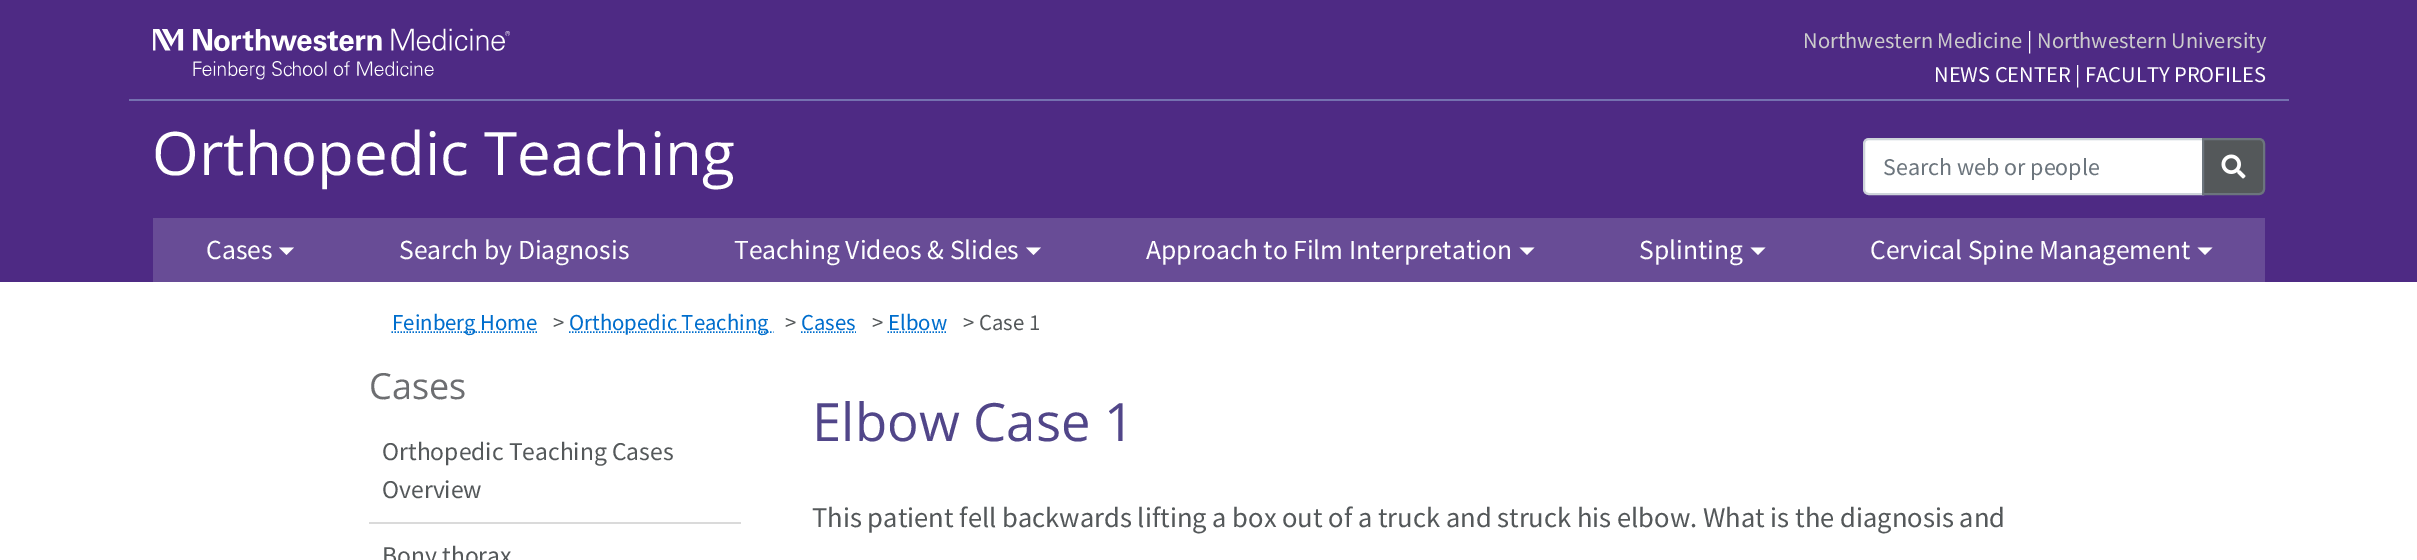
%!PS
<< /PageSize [2417 560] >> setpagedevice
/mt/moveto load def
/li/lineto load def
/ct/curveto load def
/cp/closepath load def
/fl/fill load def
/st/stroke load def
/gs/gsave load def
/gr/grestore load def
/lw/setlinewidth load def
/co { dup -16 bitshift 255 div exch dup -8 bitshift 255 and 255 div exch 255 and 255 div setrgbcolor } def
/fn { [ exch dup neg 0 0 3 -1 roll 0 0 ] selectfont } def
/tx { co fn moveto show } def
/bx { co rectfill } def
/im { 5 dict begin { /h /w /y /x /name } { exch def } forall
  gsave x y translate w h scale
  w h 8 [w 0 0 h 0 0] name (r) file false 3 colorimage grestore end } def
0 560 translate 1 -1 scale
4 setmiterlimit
0 0 2417 560 16#FFFFFF bx
0 0 2417 282 16#4E2A84 bx
(media/1.raw) 153 28 357 52 im
129 99 2160 2 16#7571B0 bx
16#FFFFFF co
1869 139 mt 2203 139 li 2203 194 li 1869 194 li 1866 194 1864 192 1864 189 ct 1864 144 li 1864 141 1866 139 1869 139 ct cp gs fl gr
16#CED4DA co
2 lw
st
16#54585A co
2203 139 mt 2259 139 li 2262 139 2264 141 2264 144 ct 2264 189 li 2264 192 2262 194 2259 194 ct 2203 194 li cp gs fl gr
16#6C757D co
st
(media/2.raw) 2221 154 25 25 im
153 218 2112 64 16#684C96 bx
16#FFFFFF co
279 247.5 mt 294 247.5 li 286.5 255 li cp fl
1026 247.5 mt 1041 247.5 li 1033.5 255 li cp fl
1519.5 247.5 mt 1534.5 247.5 li 1527 255 li cp fl
1750.5 247.5 mt 1765.5 247.5 li 1758 255 li cp fl
2197.5 247.5 mt 2212.5 247.5 li 2205 255 li cp fl
16#006ECD co
1.5 lw
[1.5 1.5] 0 setdash
391.5 332 mt 537.5 332 li st
569 332 mt 773.5 332 li st
801 332 mt 856 332 li st
887.5 332 mt 947 332 li st
369 522 372 2 16#DADADA bx
(Northwestern Medicine) 1803 48 /SourceSansPro-Regular 22.5 16#CCCCCC tx
(|) 2027 48 /SourceSansPro-Regular 22.5 16#FFFFFF tx
(Northwestern University) 2037 48 /SourceSansPro-Regular 22.5 16#CCCCCC tx
(NEWS CENTER | FACULTY PROFILES) 1934 82 /SourceSansPro-Regular 22.5 16#FFFFFF tx
(Orthopedic Teaching) 152 175 /OpenSans-Regular 60 16#FFFFFF tx
(Search web or people) 1883 175 /SourceSansPro-Regular 24 16#6C757D tx
(Cases) 206 259 /SourceSansPro-Regular 27.6 16#FFFFFF tx
(Search by Diagnosis) 399 259 /SourceSansPro-Regular 27.6 16#FFFFFF tx
(Teaching Videos & Slides) 734 259 /SourceSansPro-Regular 27.6 16#FFFFFF tx
(Approach to Film Interpretation) 1146 259 /SourceSansPro-Regular 27.6 16#FFFFFF tx
(Splinting) 1639 259 /SourceSansPro-Regular 27.6 16#FFFFFF tx
(Cervical Spine Management) 1870 259 /SourceSansPro-Regular 27.6 16#FFFFFF tx
(Feinberg Home) 392 330 /SourceSansPro-Regular 22.75 16#006ECD tx
(>) 553 330 /SourceSansPro-Regular 22.75 16#54585A tx
(Orthopedic Teaching) 569 330 /SourceSansPro-Regular 22.75 16#006ECD tx
(>) 785 330 /SourceSansPro-Regular 22.75 16#54585A tx
(Cases) 801 330 /SourceSansPro-Regular 22.75 16#006ECD tx
(>) 872 330 /SourceSansPro-Regular 22.75 16#54585A tx
(Elbow) 888 330 /SourceSansPro-Regular 22.75 16#006ECD tx
(> Case 1) 963 330 /SourceSansPro-Regular 22.75 16#54585A tx
(Cases) 369 399 /OpenSans-Regular 36 16#6D6E71 tx
(Orthopedic Teaching Cases) 382 460 /SourceSansPro-Regular 25.6 16#54585A tx
(Overview) 382 498 /SourceSansPro-Regular 25.6 16#54585A tx
(Bony thorax) 382 564 /SourceSansPro-Regular 25.6 16#54585A tx
(Elbow Case 1) 812 441 /OpenSans-Regular 52.75 16#514689 tx
(This patient fell backwards lifting a box out of a truck and struck his elbow. What is the diagnosis and) 812 527 /SourceSansPro-Regular 28.5 16#54585A tx
showpage
